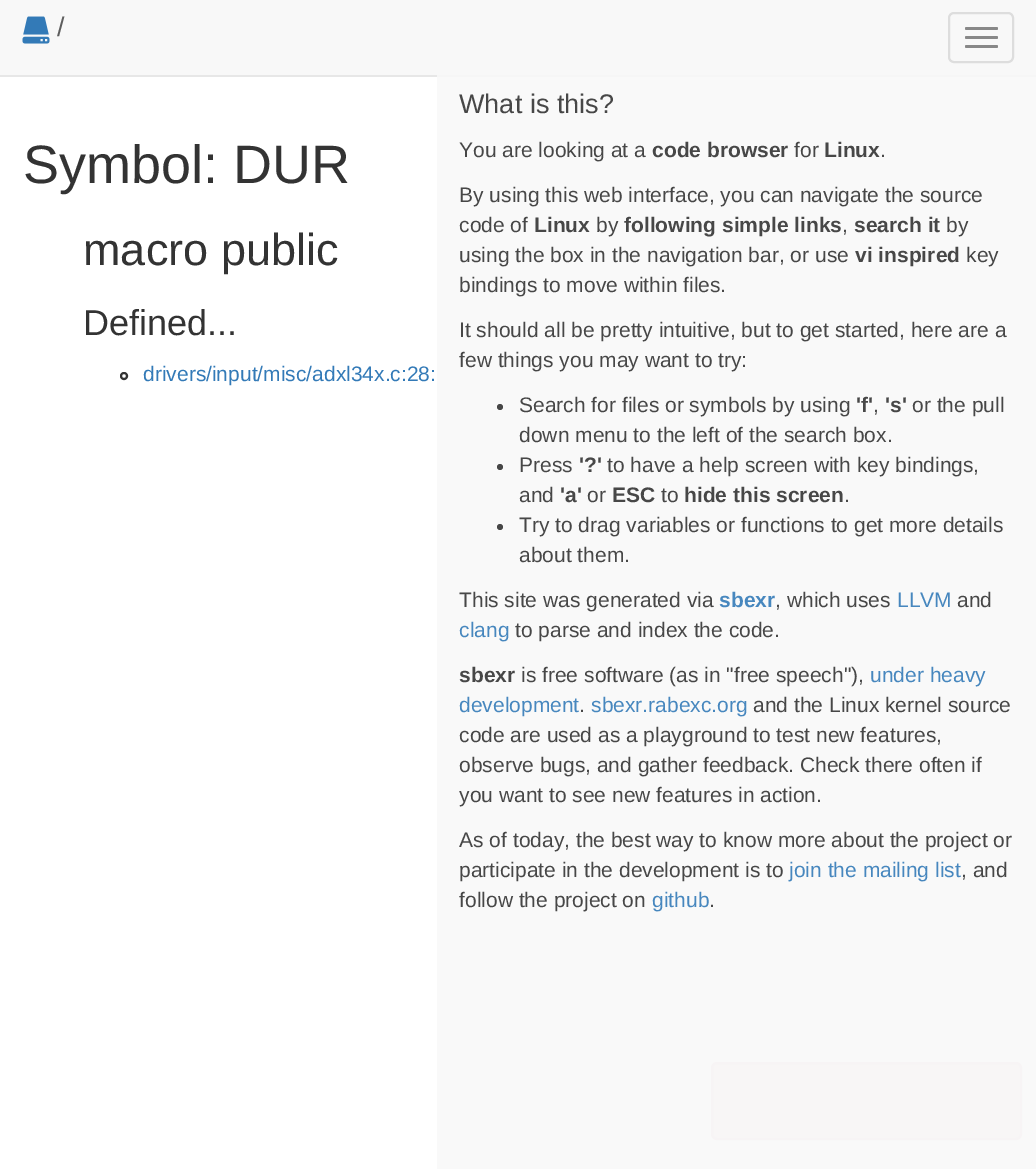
%!PS
<< /PageSize [1036 1169] /PageUsesTransparency true >> setpagedevice
/fl/fill load def
/st/stroke load def
/gs/gsave load def
/gr/grestore load def
/lw/setlinewidth load def
/co { dup -16 bitshift 255 div exch dup -8 bitshift 255 and 255 div exch 255 and 255 div setrgbcolor } def
/fn { [ exch dup neg 0 0 3 -1 roll 0 0 ] selectfont } def
/tx { co fn moveto show } def
/bx { co rectfill } def
/al { dup .setfillconstantalpha .setstrokeconstantalpha } def
/ci { newpath 0 360 arc closepath } def
/rr { 5 dict begin { /r /h /w /y /x } { exch def } forall
  x r add y moveto x w add y 2 copy h add r arct x w add y h add x 1 index r arct
  x y h add x y r arct x y 2 copy exch w add exch r arct closepath end } def
/im { 5 dict begin { /h /w /y /x /name } { exch def } forall
  gsave x y translate w h scale
  w h 8 [w 0 0 h 0 0] name (r) file false 3 colorimage grestore end } def
0 .pushpdf14devicefilter
0 1169 translate 1 -1 scale
4 setmiterlimit
0 0 1036 1169 16#FFFFFF bx
0 0 1036 75 16#F8F8F8 bx
0 75 1036 2 16#E7E7E7 bx
(media/1.raw) 22 16 28 28 im
16#DDDDDD co
2 lw
949 13 64 49 5 rr st
16#888888 co
965 27 33 3 1.5 rr fl
965 36 33 3 1.5 rr fl
965 45 33 3 1.5 rr fl
16#333333 co
124 376 3 ci st
16#F3E1E1 co
712 1063 309 76 5 rr gs fl gr
16#EDD1D6 co
st
0.9 al
437 75 599 1094 16#F8F8F8 bx
1 al
16#474747 co
500 407 3 ci fl
500 467 3 ci fl
500 527 3 ci fl
(/) 57 36 /LiberationSans-Regular 27 16#5E5E5E tx
(Symbol: DUR) 23 183 /LiberationSans-Regular 54 16#333333 tx
(macro public) 83 265 /LiberationSans-Regular 45 16#333333 tx
(Defined...) 83 335 /LiberationSans-Regular 36 16#333333 tx
(drivers/input/misc/adxl34x.c:28:) 143 381 /LiberationSans-Regular 21 16#337AB7 tx
(What is this?) 459 113 /LiberationSans-Regular 27 16#474747 tx
(You are looking at a) 459 157 /LiberationSans-Regular 21 16#474747 tx
(code browser) 652 157 /LiberationSans-Bold 21 16#474747 tx
(for) 794 157 /LiberationSans-Regular 21 16#474747 tx
(Linux) 824 157 /LiberationSans-Bold 21 16#474747 tx
(.) 880 157 /LiberationSans-Regular 21 16#474747 tx
(By using this web interface, you can navigate the source) 459 202 /LiberationSans-Regular 21 16#474747 tx
(code of) 459 232 /LiberationSans-Regular 21 16#474747 tx
(Linux) 534 232 /LiberationSans-Bold 21 16#474747 tx
(by) 596 232 /LiberationSans-Regular 21 16#474747 tx
(following simple links) 624 232 /LiberationSans-Bold 21 16#474747 tx
(,) 842 232 /LiberationSans-Regular 21 16#474747 tx
(search it) 854 232 /LiberationSans-Bold 21 16#474747 tx
(by) 946 232 /LiberationSans-Regular 21 16#474747 tx
(using the box in the navigation bar, or use) 459 262 /LiberationSans-Regular 21 16#474747 tx
(vi inspired) 855 262 /LiberationSans-Bold 21 16#474747 tx
(key) 966 262 /LiberationSans-Regular 21 16#474747 tx
(bindings to move within files.) 459 292 /LiberationSans-Regular 21 16#474747 tx
(It should all be pretty intuitive, but to get started, here are a) 459 337 /LiberationSans-Regular 21 16#474747 tx
(few things you may want to try:) 459 367 /LiberationSans-Regular 21 16#474747 tx
(Search for files or symbols by using) 519 412 /LiberationSans-Regular 21 16#474747 tx
('f') 856 412 /LiberationSans-Bold 21 16#474747 tx
('s') 885 412 /LiberationSans-Bold 21 16#474747 tx
(or the pull) 912 412 /LiberationSans-Regular 21 16#474747 tx
(,) 873 412 /LiberationSans-Regular 21 16#474747 tx
(down menu to the left of the search box.) 519 442 /LiberationSans-Regular 21 16#474747 tx
(Press) 519 472 /LiberationSans-Regular 21 16#474747 tx
('?') 579 472 /LiberationSans-Bold 21 16#474747 tx
(to have a help screen with key bindings,) 607 472 /LiberationSans-Regular 21 16#474747 tx
(and) 519 502 /LiberationSans-Regular 21 16#474747 tx
('a') 560 502 /LiberationSans-Bold 21 16#474747 tx
(or) 587 502 /LiberationSans-Regular 21 16#474747 tx
(ESC) 612 502 /LiberationSans-Bold 21 16#474747 tx
(to) 661 502 /LiberationSans-Regular 21 16#474747 tx
(hide this screen) 684 502 /LiberationSans-Bold 21 16#474747 tx
(.) 844 502 /LiberationSans-Regular 21 16#474747 tx
(Try to drag variables or functions to get more details) 519 532 /LiberationSans-Regular 21 16#474747 tx
(about them.) 519 562 /LiberationSans-Regular 21 16#474747 tx
(This site was generated via) 459 607 /LiberationSans-Regular 21 16#474747 tx
(sbexr) 719 607 /LiberationSans-Bold 21 16#4787BE tx
(, which uses) 775 607 /LiberationSans-Regular 21 16#474747 tx
(LLVM) 897 607 /LiberationSans-Regular 21 16#4787BE tx
(and) 957 607 /LiberationSans-Regular 21 16#474747 tx
(clang) 459 637 /LiberationSans-Regular 21 16#4787BE tx
(to parse and index the code.) 515 637 /LiberationSans-Regular 21 16#474747 tx
(sbexr) 459 682 /LiberationSans-Bold 21 16#474747 tx
(is free software \(as in "free speech"\),) 521 682 /LiberationSans-Regular 21 16#474747 tx
(under heavy) 870 682 /LiberationSans-Regular 21 16#4787BE tx
(development) 459 712 /LiberationSans-Regular 21 16#4787BE tx
(.) 579 712 /LiberationSans-Regular 21 16#474747 tx
(sbexr.rabexc.org) 591 712 /LiberationSans-Regular 21 16#4787BE tx
(and the Linux kernel source) 753 712 /LiberationSans-Regular 21 16#474747 tx
(code are used as a playground to test new features,) 459 742 /LiberationSans-Regular 21 16#474747 tx
(observe bugs, and gather feedback. Check there often if) 459 772 /LiberationSans-Regular 21 16#474747 tx
(you want to see new features in action.) 459 802 /LiberationSans-Regular 21 16#474747 tx
(As of today, the best way to know more about the project or) 459 847 /LiberationSans-Regular 21 16#474747 tx
(participate in the development is to) 459 877 /LiberationSans-Regular 21 16#474747 tx
(join the mailing list) 789 877 /LiberationSans-Regular 21 16#4787BE tx
(, and) 961 877 /LiberationSans-Regular 21 16#474747 tx
(follow the project on) 459 907 /LiberationSans-Regular 21 16#474747 tx
(github) 652 907 /LiberationSans-Regular 21 16#4787BE tx
(.) 709 907 /LiberationSans-Regular 21 16#474747 tx
.poppdf14devicefilter showpage
